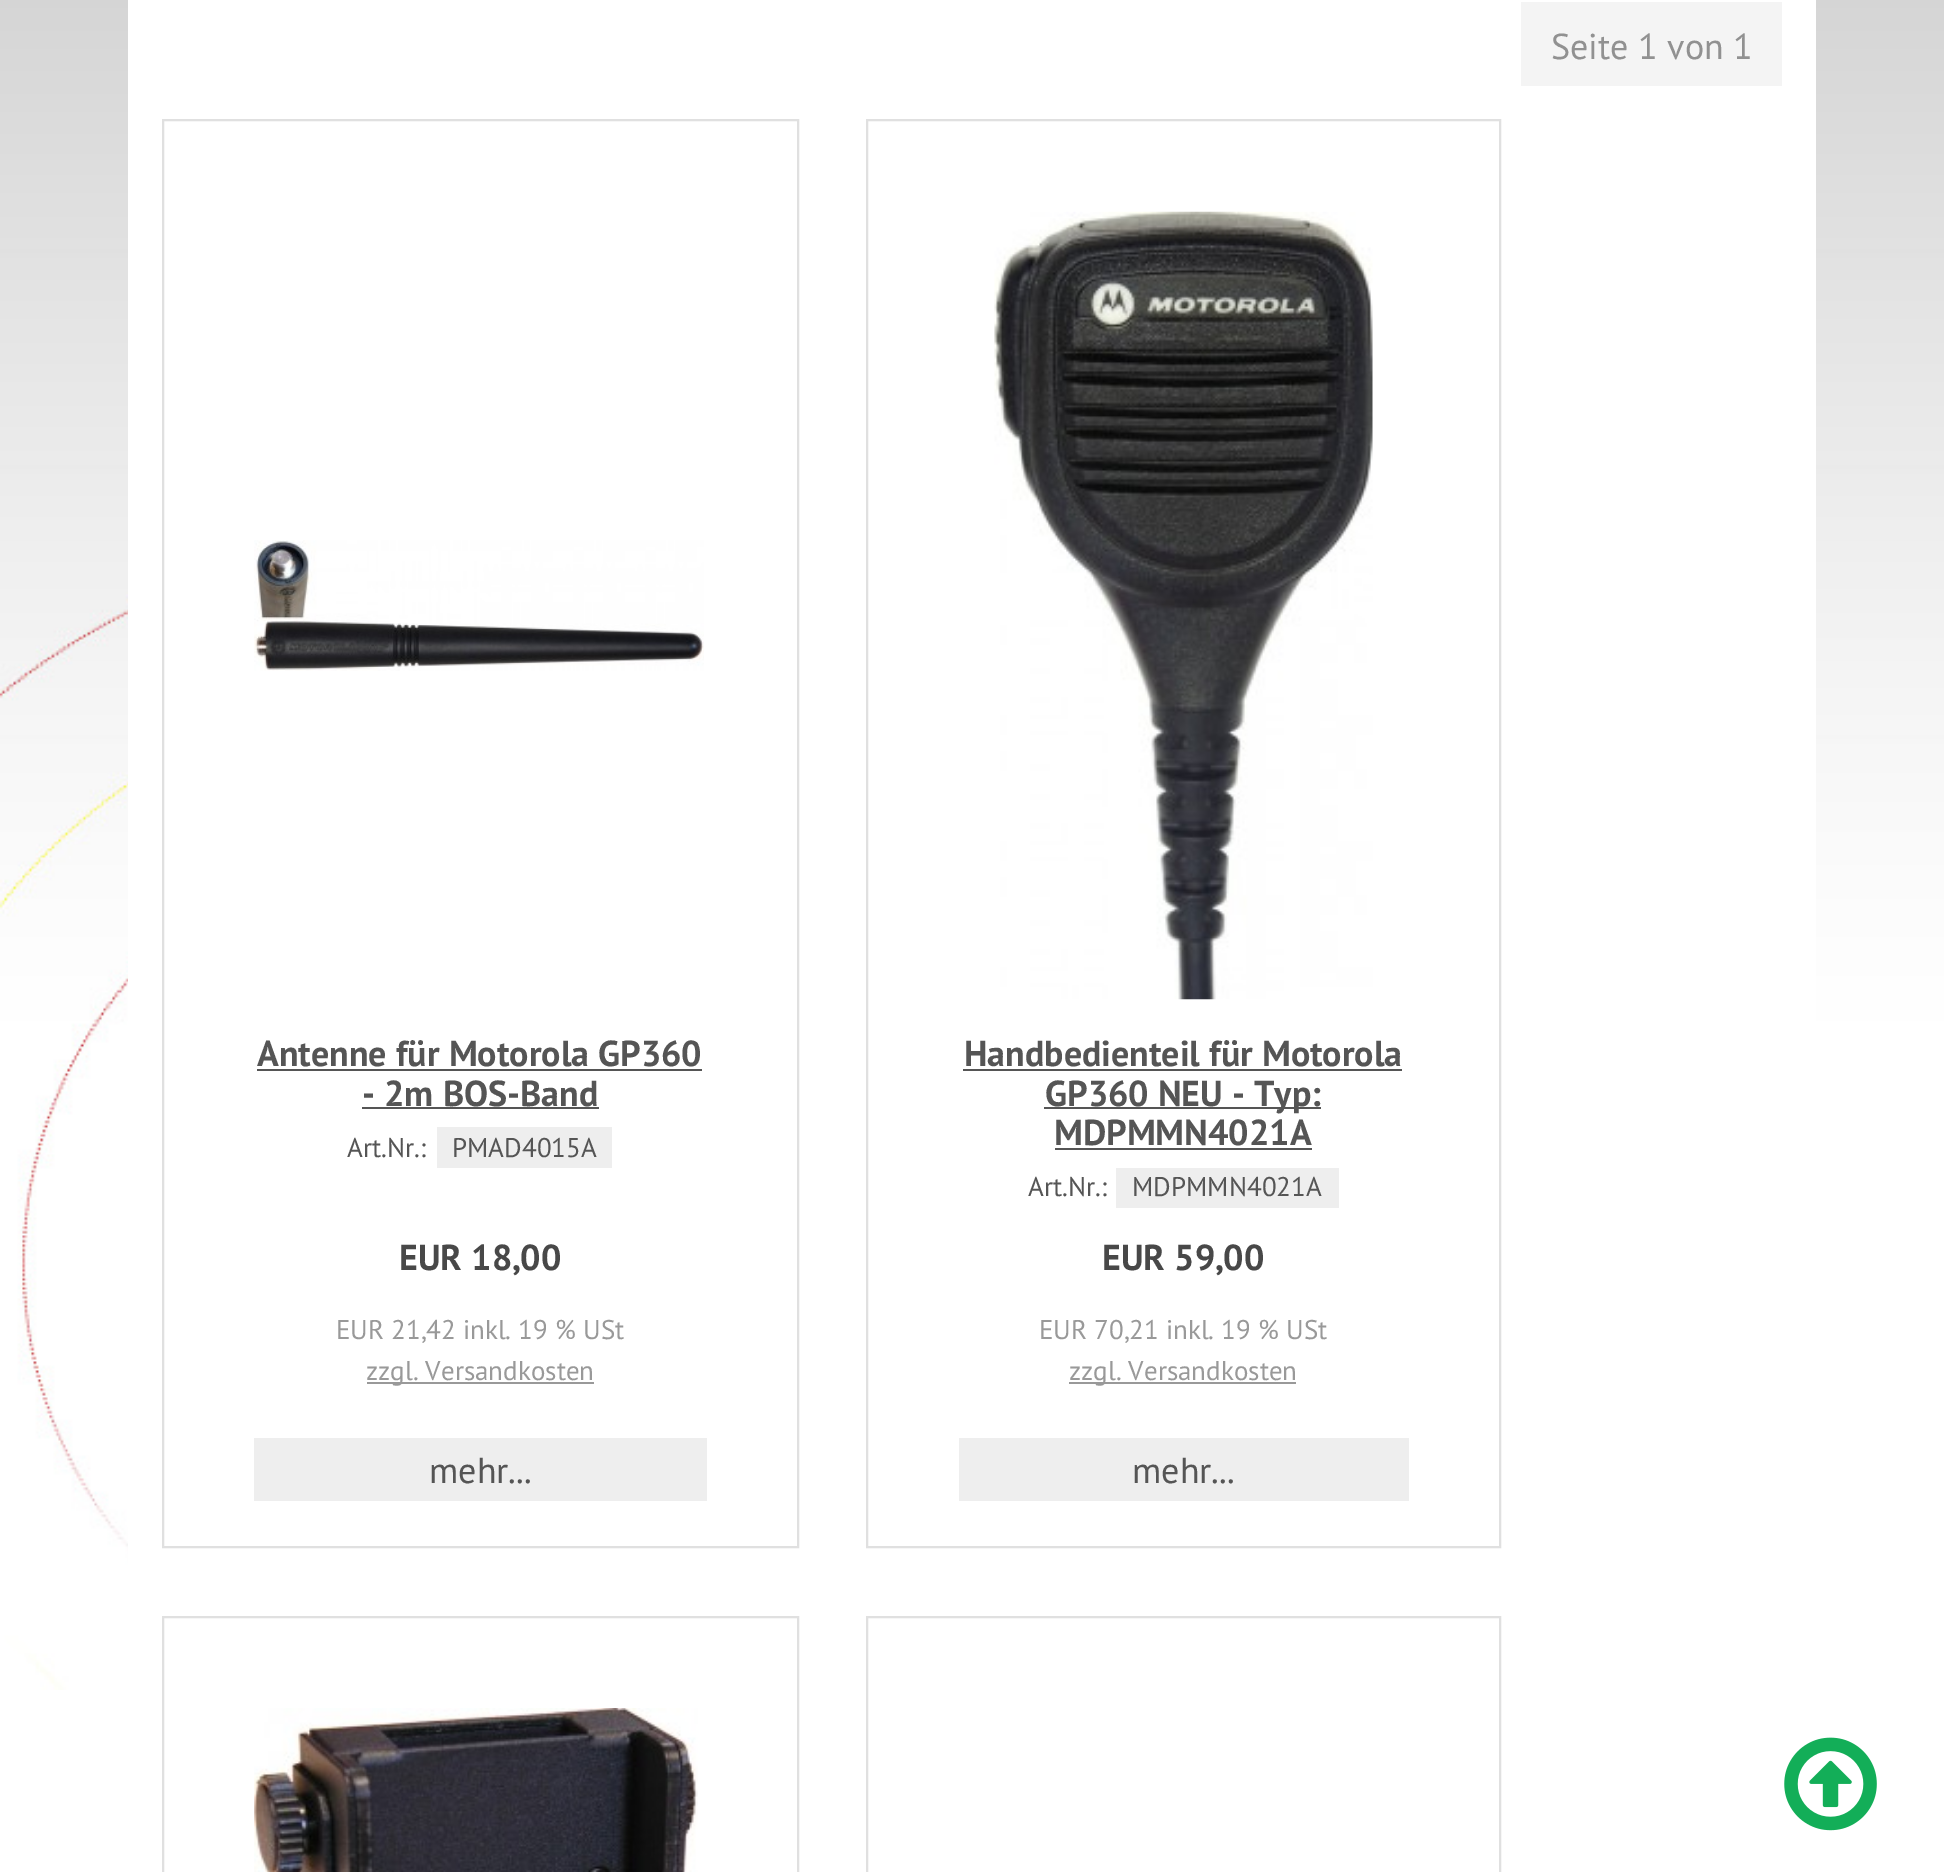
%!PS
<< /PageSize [1944 1872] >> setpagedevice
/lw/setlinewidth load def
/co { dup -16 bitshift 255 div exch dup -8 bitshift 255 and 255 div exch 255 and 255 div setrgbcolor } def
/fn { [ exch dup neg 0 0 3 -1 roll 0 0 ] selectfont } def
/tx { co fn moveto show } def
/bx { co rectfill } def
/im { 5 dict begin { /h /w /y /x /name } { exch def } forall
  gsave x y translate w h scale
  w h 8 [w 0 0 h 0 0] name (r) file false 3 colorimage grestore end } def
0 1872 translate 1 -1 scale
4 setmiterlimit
0 0 1944 1872 16#FFFFFF bx
(media/1.raw) 0 0 1944 1690 im
128 0 1688 1690 16#FFFFFF bx
1521 2 261 84 16#F4F4F4 bx
16#E0E0E0 co
2 lw
163 120 635 1427 rectstroke
(media/2.raw) 254 540 450 131 im
257 1069 445 2 16#555555 bx
362 1107 237 2 16#555555 bx
437 1127 175 41 16#EEEEEE bx
367 1382 227 2 16#999999 bx
254 1438 453 63 16#EEEEEE bx
16#E0E0E0 co
867 120 633 1427 rectstroke
(media/3.raw) 994 211 379 789 im
963 1069 439 2 16#555555 bx
1044 1107 277 2 16#555555 bx
1055 1148 257 2 16#555555 bx
1116 1168 223 40 16#EEEEEE bx
1069 1382 227 2 16#999999 bx
959 1438 450 63 16#EEEEEE bx
16#E0E0E0 co
163 1617 635 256 rectstroke
(media/4.raw) 254 1708 444 164 im
867 1617 633 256 rectstroke
(media/5.raw) 1784 1737 93 94 im
(Seite 1 von 1) 1551 59 /PTSans-Regular 36 16#919191 tx
(Antenne für Motorola GP360) 257 1066 /PTSans-Bold 36 16#555555 tx
(- 2m BOS-Band) 362 1106 /PTSans-Bold 36 16#555555 tx
(Art.Nr.:) 347 1157 /PTSans-Regular 27 16#555555 tx
(PMAD4015A) 452 1157 /PTSans-Regular 27 16#555555 tx
(EUR 18,00) 399 1270 /PTSans-Bold 36 16#484848 tx
(EUR 21,42 inkl. 19 % USt) 336 1339 /PTSans-Regular 27 16#999999 tx
(zzgl. Versandkosten) 366 1380 /PTSans-Regular 27 16#999999 tx
(mehr...) 429 1483 /PTSans-Regular 36 16#555555 tx
(Handbedienteil für Motorola) 964 1066 /PTSans-Bold 36 16#555555 tx
(GP360 NEU - Typ:) 1045 1106 /PTSans-Bold 36 16#555555 tx
(MDPMMN4021A) 1054 1145 /PTSans-Bold 36 16#555555 tx
(Art.Nr.:) 1028 1196 /PTSans-Regular 27 16#555555 tx
(MDPMMN4021A) 1132 1196 /PTSans-Regular 27 16#555555 tx
(EUR 59,00) 1102 1270 /PTSans-Bold 36 16#484848 tx
(EUR 70,21 inkl. 19 % USt) 1039 1339 /PTSans-Regular 27 16#999999 tx
(zzgl. Versandkosten) 1069 1380 /PTSans-Regular 27 16#999999 tx
(mehr...) 1132 1483 /PTSans-Regular 36 16#555555 tx
showpage
